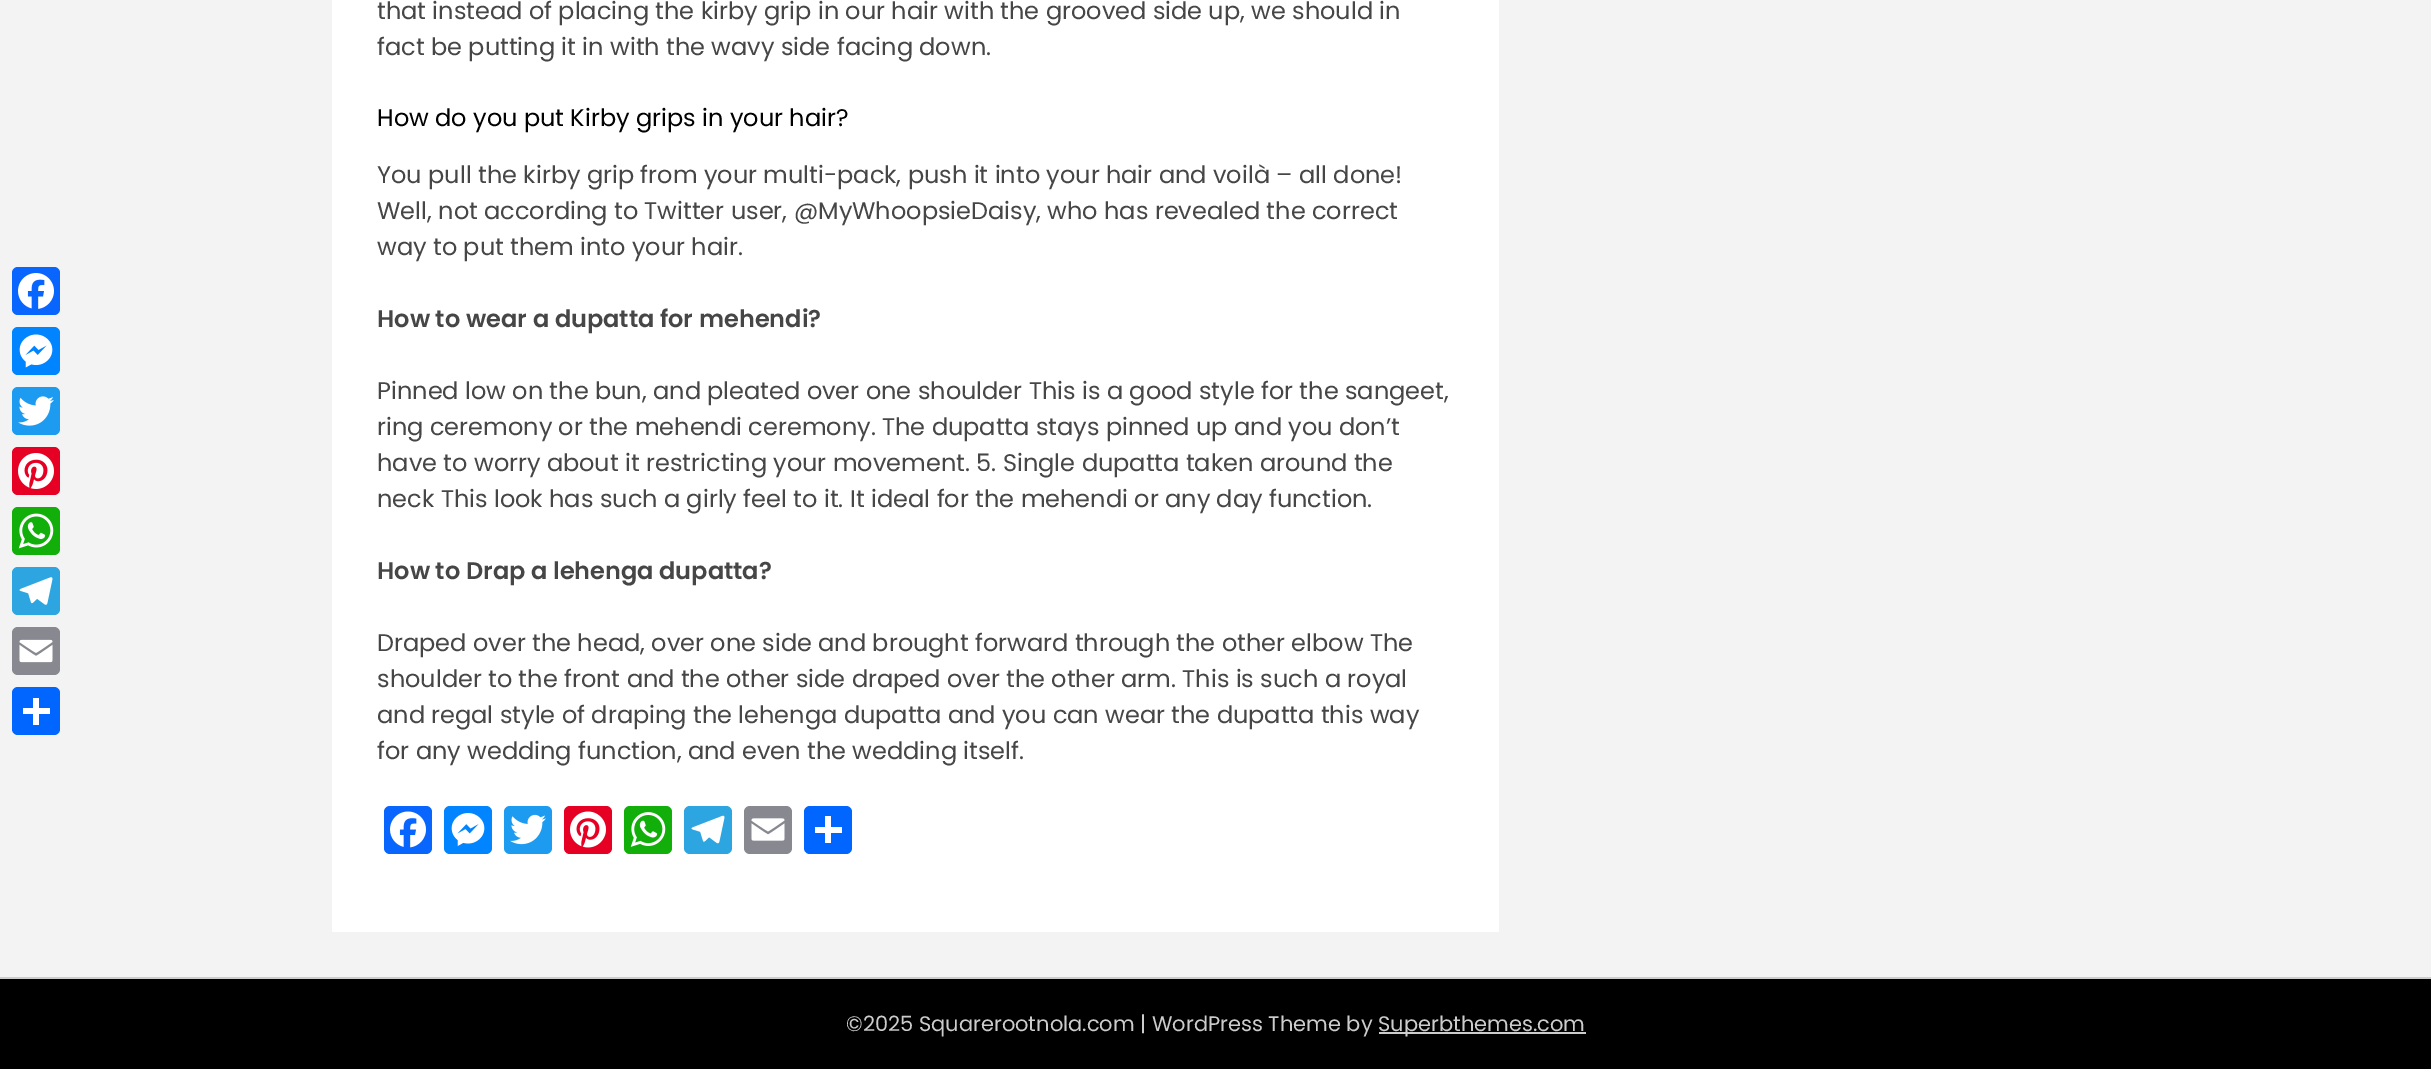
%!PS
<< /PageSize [2431 1069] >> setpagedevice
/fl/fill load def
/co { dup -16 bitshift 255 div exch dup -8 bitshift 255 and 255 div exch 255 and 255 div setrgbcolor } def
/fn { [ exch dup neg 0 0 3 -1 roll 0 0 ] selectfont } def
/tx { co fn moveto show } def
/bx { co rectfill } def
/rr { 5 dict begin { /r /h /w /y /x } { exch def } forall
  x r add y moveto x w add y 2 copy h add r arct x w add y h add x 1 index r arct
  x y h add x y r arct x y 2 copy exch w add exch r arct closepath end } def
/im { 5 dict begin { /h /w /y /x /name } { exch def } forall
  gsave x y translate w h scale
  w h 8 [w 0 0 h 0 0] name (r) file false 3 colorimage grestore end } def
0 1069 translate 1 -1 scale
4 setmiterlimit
0 0 2431 1069 16#F3F3F3 bx
16#0866FF co
12 267 48 48 6 rr fl
(media/1.raw) 18 273 36 36 im
16#0084FF co
12 327 48 48 6 rr fl
(media/2.raw) 19 334 34 34 im
16#1D9BF0 co
12 387 48 48 6 rr fl
(media/3.raw) 18 396 36 30 im
16#E60023 co
12 447 48 48 6 rr fl
(media/4.raw) 18 453 36 36 im
16#12AF0A co
12 507 48 48 6 rr fl
(media/5.raw) 18 513 36 36 im
16#2CA5E0 co
12 567 48 48 6 rr fl
(media/6.raw) 19 577 34 28 im
16#888990 co
12 627 48 48 6 rr fl
(media/7.raw) 19 639 34 24 im
16#0166FF co
12 687 48 48 6 rr fl
33 698 6 27 16#FFFFFF bx
23 708 27 6 16#FFFFFF bx
332 -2 1167 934 1.5 rr fl
16#0866FF co
384 806 48 48 6 rr fl
(media/8.raw) 390 811 36 37 im
16#0084FF co
444 806 48 48 6 rr fl
(media/9.raw) 451 813 34 33 im
16#1D9BF0 co
504 806 48 48 6 rr fl
(media/10.raw) 510 814 36 31 im
16#E60023 co
564 806 48 48 6 rr fl
(media/11.raw) 570 811 36 37 im
16#12AF0A co
624 806 48 48 6 rr fl
(media/12.raw) 630 812 36 35 im
16#2CA5E0 co
684 806 48 48 6 rr fl
(media/13.raw) 691 815 34 29 im
16#888990 co
744 806 48 48 6 rr fl
(media/14.raw) 751 818 34 23 im
16#0166FF co
804 806 48 48 6 rr fl
825 816 6 27 16#FFFFFF bx
815 827 27 6 16#FFFFFF bx
0 979 2431 90 16#000000 bx
0 977 2431 2 16#CCCCCC bx
1379 1032 207 2 16#CCCCCC bx
(that instead of placing the kirby grip in our hair with the grooved side up, we should in) 377 19 /Poppins-Regular 24 16#464646 tx
(fact be putting it in with the wavy side facing down.) 377 55 /Poppins-Regular 24 16#464646 tx
(How do you put Kirby grips in your hair?) 377 126 /Poppins-Regular 24 16#000000 tx
(You pull the kirby grip from your multi-pack, push it into your hair and voilà – all done!) 377 183 /Poppins-Regular 24 16#464646 tx
(Well, not according to Twitter user, @MyWhoopsieDaisy, who has revealed the correct) 377 219 /Poppins-Regular 24 16#464646 tx
(way to put them into your hair.) 377 255 /Poppins-Regular 24 16#464646 tx
(How to wear a dupatta for mehendi?) 377 327 /Poppins-SemiBold 24 16#464646 tx
(Pinned low on the bun, and pleated over one shoulder This is a good style for the sangeet,) 377 399 /Poppins-Regular 24 16#464646 tx
(ring ceremony or the mehendi ceremony. The dupatta stays pinned up and you don’t) 377 435 /Poppins-Regular 24 16#464646 tx
(have to worry about it restricting your movement. 5. Single dupatta taken around the) 377 471 /Poppins-Regular 24 16#464646 tx
(neck This look has such a girly feel to it. It ideal for the mehendi or any day function.) 377 507 /Poppins-Regular 24 16#464646 tx
(How to Drap a lehenga dupatta?) 377 579 /Poppins-SemiBold 24 16#464646 tx
(Draped over the head, over one side and brought forward through the other elbow The) 377 651 /Poppins-Regular 24 16#464646 tx
(shoulder to the front and the other side draped over the other arm. This is such a royal) 377 687 /Poppins-Regular 24 16#464646 tx
(and regal style of draping the lehenga dupatta and you can wear the dupatta this way) 377 723 /Poppins-Regular 24 16#464646 tx
(for any wedding function, and even the wedding itself.) 377 759 /Poppins-Regular 24 16#464646 tx
(©2025 Squarerootnola.com | WordPress Theme by) 846 1031 /Poppins-Regular 21 16#CCCCCC tx
(Superbthemes.com) 1378 1031 /Poppins-Regular 21 16#CCCCCC tx
showpage
